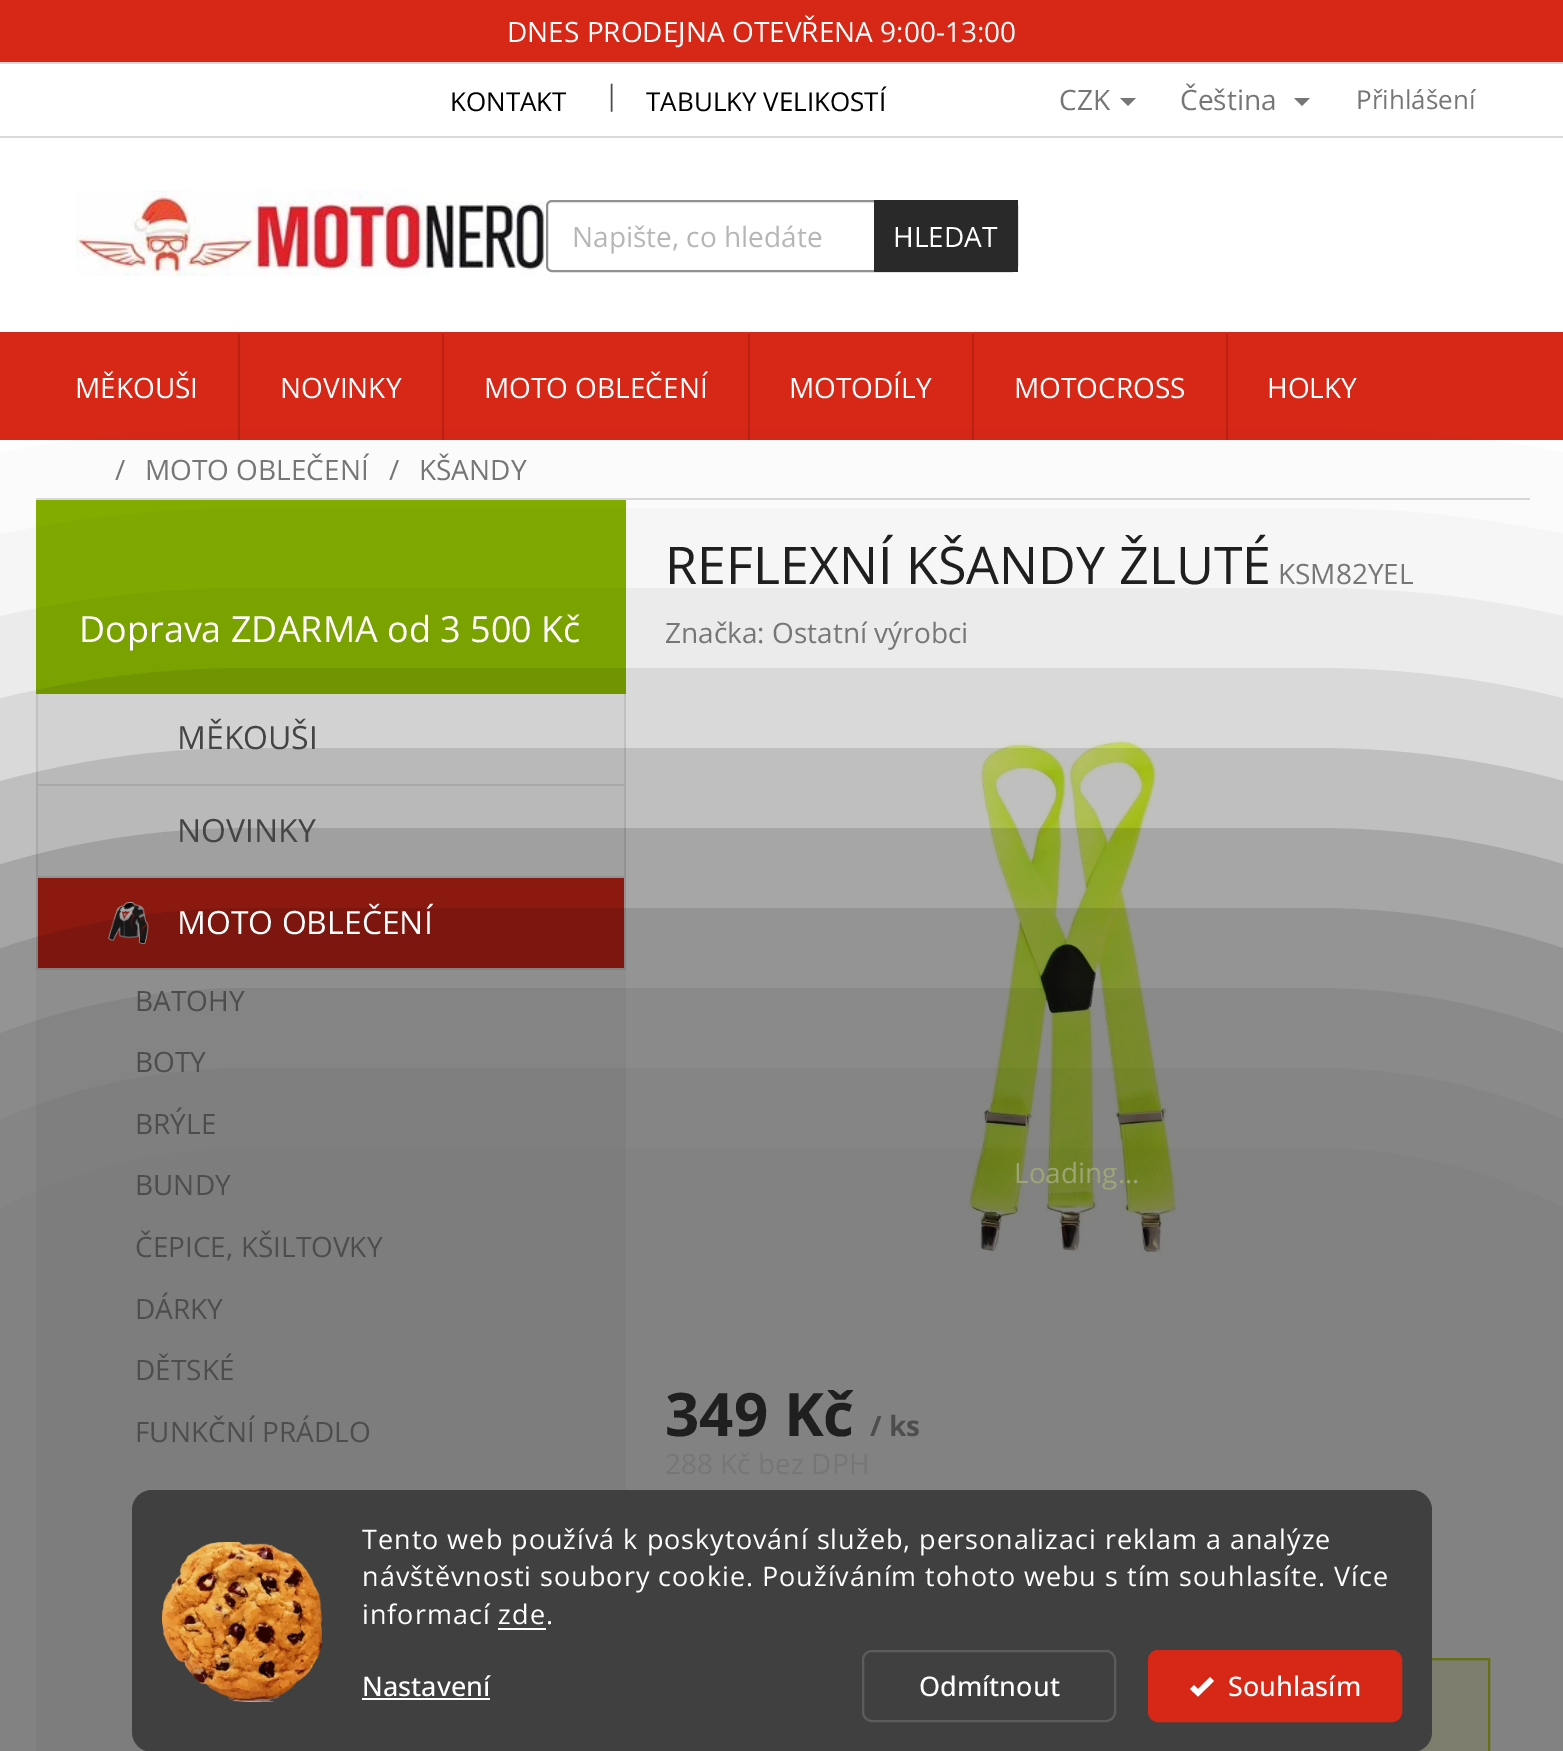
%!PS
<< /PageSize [1563 1751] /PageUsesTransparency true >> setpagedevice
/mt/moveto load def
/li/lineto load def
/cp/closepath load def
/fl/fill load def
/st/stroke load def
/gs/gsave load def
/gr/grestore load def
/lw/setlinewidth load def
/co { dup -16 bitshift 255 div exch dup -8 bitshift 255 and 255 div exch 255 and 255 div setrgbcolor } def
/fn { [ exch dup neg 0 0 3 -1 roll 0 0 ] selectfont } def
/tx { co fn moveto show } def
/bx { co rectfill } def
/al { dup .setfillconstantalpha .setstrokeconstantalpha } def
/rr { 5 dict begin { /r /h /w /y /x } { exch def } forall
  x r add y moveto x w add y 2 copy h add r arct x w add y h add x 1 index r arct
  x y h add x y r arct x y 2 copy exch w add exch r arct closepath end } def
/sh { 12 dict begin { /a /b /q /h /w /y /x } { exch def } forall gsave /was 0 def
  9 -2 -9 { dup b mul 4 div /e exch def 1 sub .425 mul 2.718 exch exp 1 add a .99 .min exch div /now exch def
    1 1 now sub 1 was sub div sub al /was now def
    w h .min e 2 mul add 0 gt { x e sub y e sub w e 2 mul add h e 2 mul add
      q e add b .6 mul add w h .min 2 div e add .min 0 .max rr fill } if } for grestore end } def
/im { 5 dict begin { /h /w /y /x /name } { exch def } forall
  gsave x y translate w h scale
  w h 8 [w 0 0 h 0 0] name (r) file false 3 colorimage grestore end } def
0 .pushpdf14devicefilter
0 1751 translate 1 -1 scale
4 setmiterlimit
0 0 1563 1751 16#FFFFFF bx
0 0 1563 62 16#D72817 bx
0 62 1563 2 16#DADADA bx
0 136 1563 2 16#DADADA bx
16#767676 co
1120 98 mt 1136 98 li 1128 106 li cp fl
1294 98 mt 1310 98 li 1302 106 li cp fl
0 332 1563 108 16#D72817 bx
(media/1.raw) 76 190 470 86 im
16#919191 co
2 lw
547 201 470 70 5 rr st
874 200 144 72 16#292929 bx
238 334 2 106 16#B92113 bx
442 334 2 106 16#B92113 bx
748 334 2 106 16#B92113 bx
972 334 2 106 16#B92113 bx
1226 334 2 106 16#B92113 bx
36 498 1494 2 16#DADADA bx
36 694 590 1057 16#F7F7F7 bx
36 500 590 194 16#85AF00 bx
624 694 2 276 16#E1E1E1 bx
36 784 590 2 16#E1E1E1 bx
36 694 2 92 16#E1E1E1 bx
36 876 590 2 16#E1E1E1 bx
36 786 2 92 16#E1E1E1 bx
38 878 586 90 16#D72817 bx
(media/2.raw) 108 902 41 42 im
36 968 590 2 16#E1E1E1 bx
36 878 2 92 16#E1E1E1 bx
(media/3.raw) 966 740 214 516 im
1418 1660 70 91 16#F3F7D8 bx
16#C7DB24 co
667 1659 822 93 rectstroke
16#000000 co
-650 788 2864 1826 802 160 .5 sh
16#404040 co
132 1490 1300 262 20 rr fl
(media/4.raw) 162 1542 160 160 im
498 1628 48 2 16#FFFFFF bx
362 1698 128 2 16#FFFFFF bx
16#5C5C5C co
863 1651 252 70 9 rr st
16#D72817 co
1149 1651 252 70 9 rr gs fl gr
st
16#FFFFFF co
1210 1677 mt 1198 1689 li 1194 1685 li 1190 1689 li 1198 1696.5 li 1214 1681 li cp fl
(DNES PRODEJNA OTEVŘENA 9:00-13:00) 507 42 /OpenSans-Regular 28 16#FFFFFF tx
(KONTAKT) 450 111 /OpenSans-Regular 26 16#000000 tx
(|) 604 105 /OpenSans-Regular 28 16#4D4D4D tx
(TABULKY VELIKOSTÍ) 646 111 /OpenSans-Regular 26 16#000000 tx
(CZK) 1059 110 /OpenSans-Regular 28 16#767676 tx
(Čeština) 1180 110 /OpenSans-Regular 28 16#767676 tx
(Přihlášení) 1356 109 /OpenSans-Regular 26 16#767676 tx
(Napište, co hledáte) 572 247 /OpenSans-Regular 28 16#B6B6B6 tx
(HLEDAT) 893 247 /OpenSans-Regular 28 16#FFFFFF tx
(MĚKOUŠI) 75 398 /OpenSans-Regular 28 16#FFFFFF tx
(NOVINKY) 280 398 /OpenSans-Regular 28 16#FFFFFF tx
(MOTO OBLEČENÍ) 484 398 /OpenSans-Regular 28 16#FFFFFF tx
(MOTODÍLY) 789 398 /OpenSans-Regular 28 16#FFFFFF tx
(MOTOCROSS) 1014 398 /OpenSans-Regular 28 16#FFFFFF tx
(HOLKY) 1267 398 /OpenSans-Regular 28 16#FFFFFF tx
(/) 115 480 /OpenSans-Regular 28 16#767676 tx
(MOTO OBLEČENÍ) 145 480 /OpenSans-Regular 28 16#767676 tx
(/) 389 480 /OpenSans-Regular 28 16#767676 tx
(KŠANDY) 419 480 /OpenSans-Regular 28 16#767676 tx
(Doprava ZDARMA od 3 500 Kč) 79 642 /OpenSans-Regular 36 16#FFFFFF tx
(MĚKOUŠI) 177 749 /OpenSans-Regular 32 16#444444 tx
(NOVINKY) 177 842 /OpenSans-Regular 32 16#444444 tx
(MOTO OBLEČENÍ) 177 934 /OpenSans-Regular 32 16#FFFFFF tx
(BATOHY) 135 1011 /OpenSans-Regular 28 16#4D4D4D tx
(BOTY) 135 1072 /OpenSans-Regular 28 16#4D4D4D tx
(BRÝLE) 135 1134 /OpenSans-Regular 28 16#4D4D4D tx
(BUNDY) 135 1195 /OpenSans-Regular 28 16#4D4D4D tx
(ČEPICE, KŠILTOVKY) 135 1257 /OpenSans-Regular 28 16#4D4D4D tx
(DÁRKY) 135 1319 /OpenSans-Regular 28 16#4D4D4D tx
(DĚTSKÉ) 135 1380 /OpenSans-Regular 28 16#4D4D4D tx
(FUNKČNÍ PRÁDLO) 135 1442 /OpenSans-Regular 28 16#4D4D4D tx
(REFLEXNÍ KŠANDY ŽLUTÉ) 665 584 /OpenSans-Regular 52 16#1F1F1F tx
(KSM82YEL) 1278 584 /OpenSans-Regular 28 16#767676 tx
(Značka: Ostatní výrobci) 665 643 /OpenSans-Regular 28 16#767676 tx
(Loading...) 1014 1183 /OpenSans-Regular 28 16#9DA577 tx
(349 Kč) 665 1436 /OpenSans-Bold 60 16#1F1F1F tx
(/ ks) 870 1436 /OpenSans-Bold 28 16#4D4D4D tx
(288 Kč bez DPH) 665 1474 /OpenSans-Regular 28 16#767676 tx
/OpenSans-Regular 27 fn
16#FFFFFF co
362 1549 mt 1 0 (Tento web používá k poskytování služeb, personalizaci reklam a analýze) ashow
362 1586 mt 1 0 (návštěvnosti soubory cookie. Používáním tohoto webu s tím souhlasíte. Více) ashow
362 1624 mt 1 0 (informací zde.) ashow
(Nastavení) 362 1696 /OpenSans-Medium 27 16#FFFFFF tx
(Odmítnout) 919 1696 /OpenSans-Medium 27 16#FFFFFF tx
(Souhlasím) 1228 1696 /OpenSans-Medium 27 16#FFFFFF tx
.poppdf14devicefilter showpage
